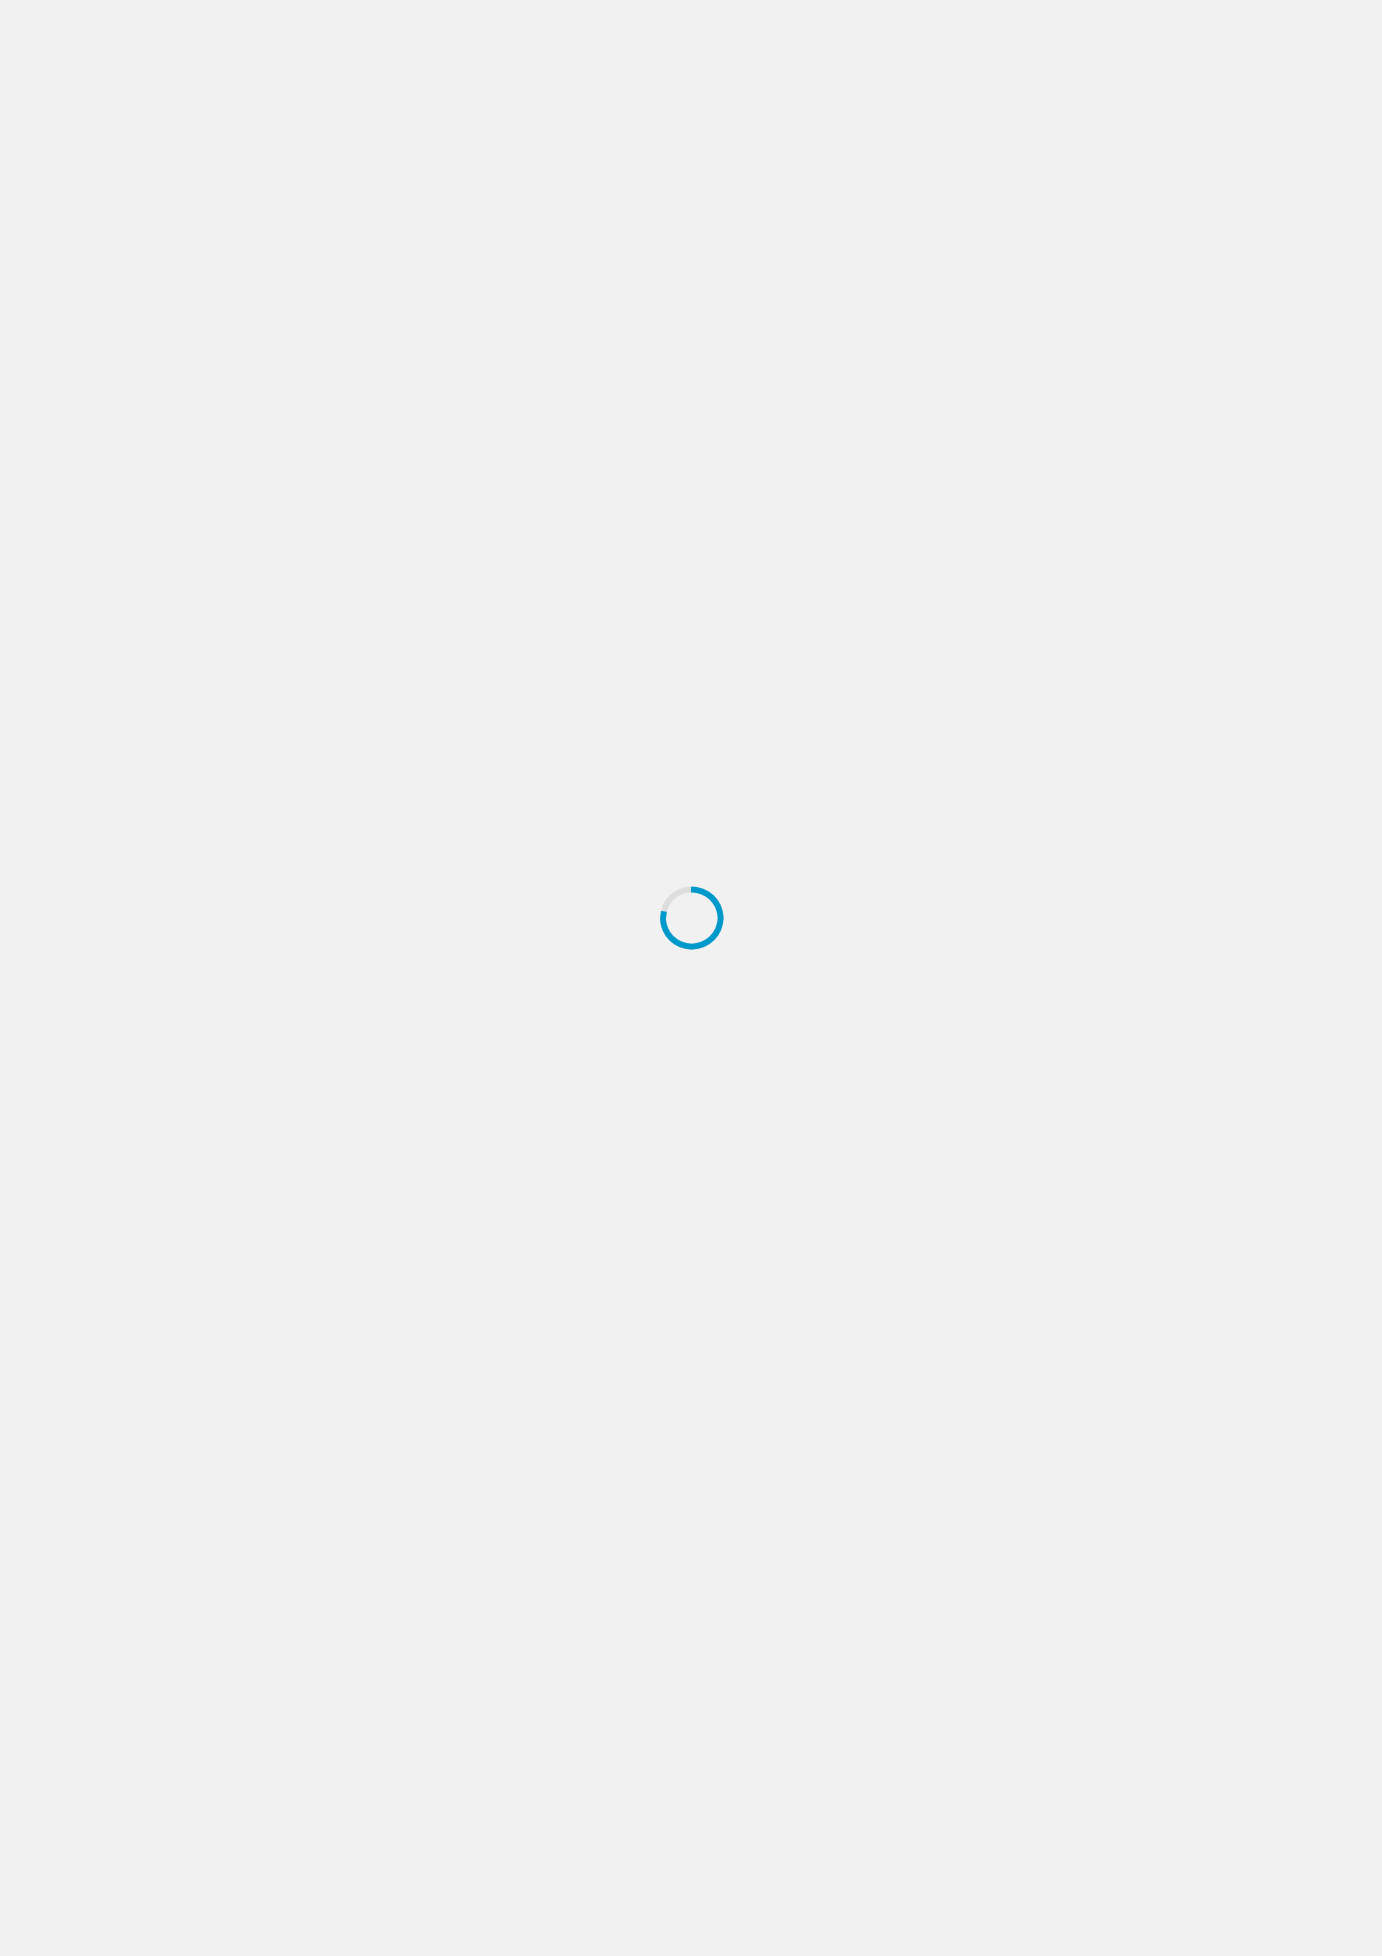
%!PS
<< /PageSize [1382 1956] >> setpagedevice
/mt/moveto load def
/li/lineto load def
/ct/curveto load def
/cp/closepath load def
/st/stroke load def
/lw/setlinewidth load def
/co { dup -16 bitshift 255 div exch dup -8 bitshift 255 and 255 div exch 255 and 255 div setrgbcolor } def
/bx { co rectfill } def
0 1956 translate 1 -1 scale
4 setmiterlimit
0 0 1382 1956 16#F1F1F1 bx
16#DDDDDD co
5.6 lw
691 889.5 mt 707.5 889.5 720.5 902 720.5 918 ct 720.5 934 707.5 946.5 691.5 946.5 ct 676 946.5 663 934 663 918 ct 663 902 676 889.5 691.5 889.5 ct cp st
16#0099CC co
691 889.5 mt 707.5 889.5 720.5 902 720.5 918 ct 720.5 934 707.5 946.5 691.5 946.5 ct 676 946.5 663 934 663 918 ct 664 911.5 li st
showpage
